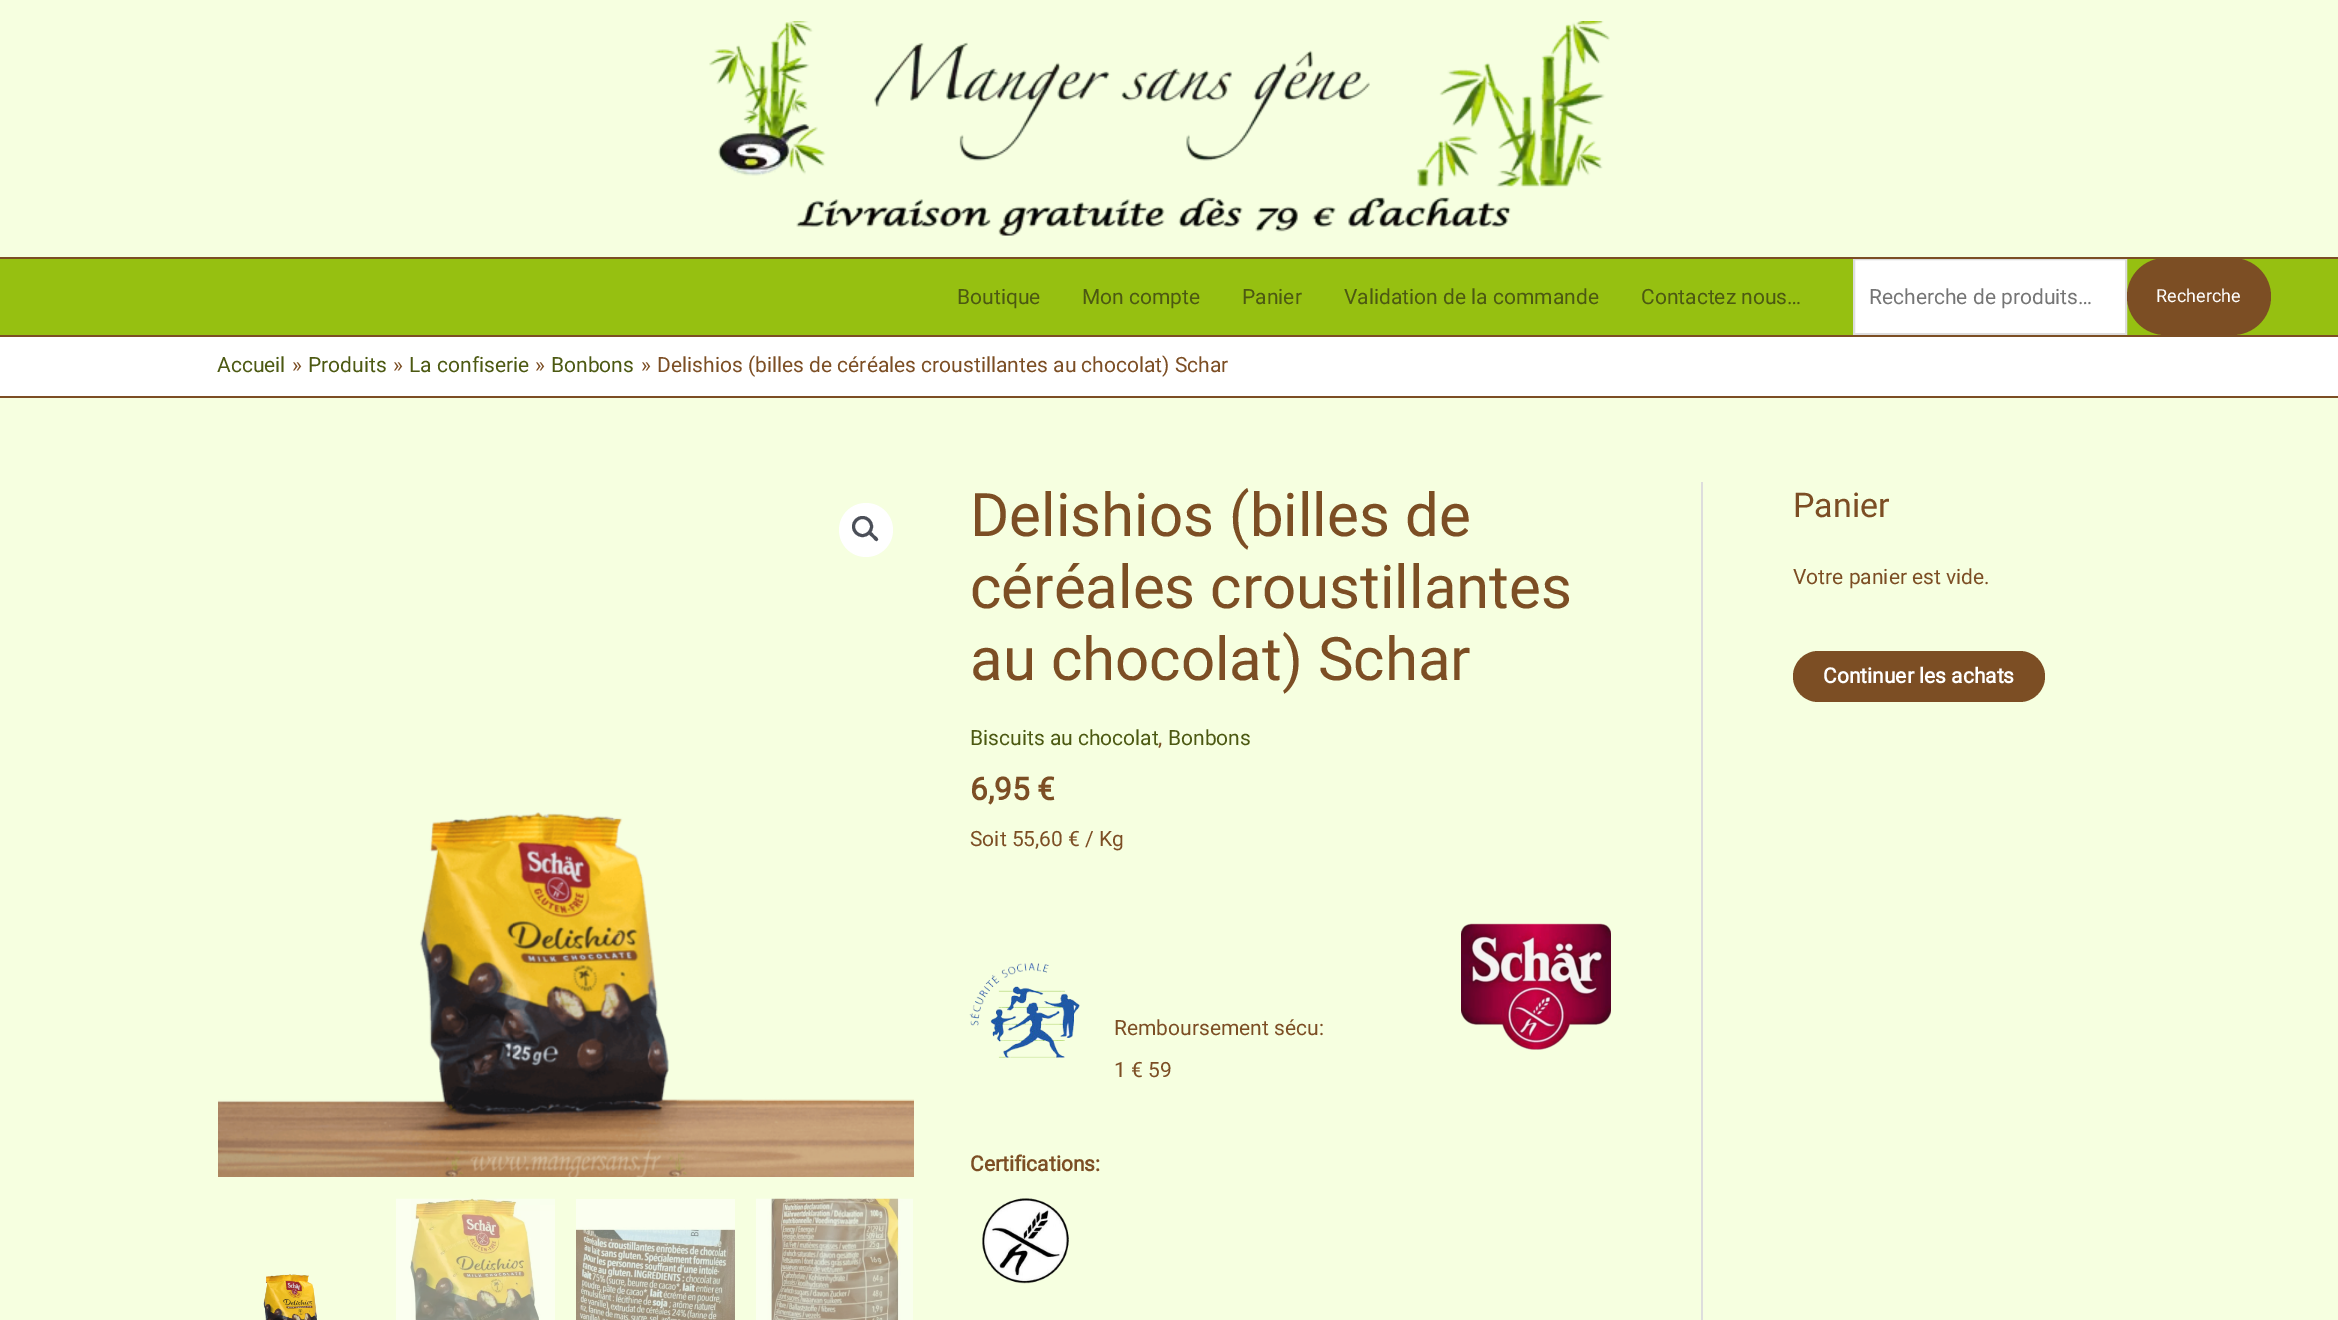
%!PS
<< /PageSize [2338 1320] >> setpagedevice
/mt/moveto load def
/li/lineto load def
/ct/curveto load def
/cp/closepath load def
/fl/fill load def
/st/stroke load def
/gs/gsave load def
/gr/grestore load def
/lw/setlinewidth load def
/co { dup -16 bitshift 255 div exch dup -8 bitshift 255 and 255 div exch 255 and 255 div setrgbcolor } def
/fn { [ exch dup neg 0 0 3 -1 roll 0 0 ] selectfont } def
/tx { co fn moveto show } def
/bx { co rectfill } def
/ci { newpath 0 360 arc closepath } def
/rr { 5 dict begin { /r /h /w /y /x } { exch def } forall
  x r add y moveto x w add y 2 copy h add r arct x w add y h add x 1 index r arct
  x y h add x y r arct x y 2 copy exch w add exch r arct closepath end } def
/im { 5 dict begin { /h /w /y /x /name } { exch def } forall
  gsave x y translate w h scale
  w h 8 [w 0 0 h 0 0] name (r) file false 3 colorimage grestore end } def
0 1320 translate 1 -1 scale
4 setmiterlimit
0 0 2338 1320 16#F6FFE0 bx
0 259 2338 76 16#96C011 bx
16#FFFFFF co
1854 259 mt 2126 259 li 2126 334 li 1854 334 li cp gs fl gr
16#DDDDDD co
2 lw
st
16#7C4E24 co
2127 258 144 77 38.5 rr fl
0 257 2338 2 16#7C4E24 bx
(media/1.raw) 709 21 901 215 im
0 335 2338 2 16#7C4E24 bx
0 337 2338 59 16#FFFFFF bx
0 396 2338 2 16#7C4E24 bx
1701 482 2 838 16#DDDDDD bx
16#FFFFFF co
866 530 27 ci fl
16#4B4F58 co
3 lw
862.5 526.5 9 ci st
869 532 mt 871 530.5 873.5 534.5 874.5 535.5 ct 875.5 536 879.5 539 877.5 540.5 ct 876 542.5 873.5 538.5 872.5 537.5 ct 871.5 536.5 867.5 534 869 532 ct cp fl
(media/2.raw) 218 812 696 365 im
(media/3.raw) 263 1274 54 46 im
(media/4.raw) 396 1198 159 122 im
(media/5.raw) 576 1199 159 121 im
(media/6.raw) 756 1198 157 122 im
(media/7.raw) 969 962 111 96 im
(media/8.raw) 1461 923 150 127 im
(media/9.raw) 982 1198 87 86 im
16#7C4E24 co
1793 651 252 51 25.5 rr fl
(Boutique) 957 304 /Roboto-Regular 21 16#4C5912 tx
(Mon compte) 1082 304 /Roboto-Regular 21 16#4C5912 tx
(Panier) 1242 304 /Roboto-Regular 21 16#4C5912 tx
(Validation de la commande) 1344 304 /Roboto-Regular 21 16#4C5912 tx
(Contactez nous…) 1641 304 /Roboto-Regular 21 16#4C5912 tx
(Recherche de produits…) 1869 304 /Roboto-Regular 21 16#757575 tx
(Recherche) 2156 302 /Roboto-Regular 18 16#FFFFFF tx
(Accueil) 217 372 /Roboto-Regular 21 16#4C5912 tx
(») 292 372 /Roboto-Regular 21 16#7C4E24 tx
(Produits) 308 372 /Roboto-Regular 21 16#4C5912 tx
(») 393 372 /Roboto-Regular 21 16#7C4E24 tx
(La confiserie) 409 372 /Roboto-Regular 21 16#4C5912 tx
(») 535 372 /Roboto-Regular 21 16#7C4E24 tx
(Bonbons) 551 372 /Roboto-Regular 21 16#4C5912 tx
(») 641 372 /Roboto-Regular 21 16#7C4E24 tx
(Delishios \(billes de céréales croustillantes au chocolat\) Schar) 657 372 /Roboto-Regular 21 16#7C4E24 tx
(Delishios \(billes de) 970 536 /Roboto-Regular 60 16#7C4E24 tx
(céréales croustillantes) 970 608 /Roboto-Regular 60 16#7C4E24 tx
(au chocolat\) Schar) 970 680 /Roboto-Regular 60 16#7C4E24 tx
(Biscuits au chocolat) 970 745 /Roboto-Regular 21 16#4C5912 tx
(,) 1158 745 /Roboto-Regular 21 16#7C4E24 tx
(Bonbons) 1168 745 /Roboto-Regular 21 16#4C5912 tx
(6,95 €) 970 800 /Roboto-Bold 31.5 16#7C4E24 tx
(Soit 55,60 € / Kg) 970 846 /Roboto-Regular 21 16#7C4E24 tx
(Remboursement sécu:) 1114 1035 /Roboto-Regular 21 16#7C4E24 tx
(1 € 59) 1114 1077 /Roboto-Regular 21 16#7C4E24 tx
(Certifications:) 970 1171 /Roboto-Bold 21 16#7C4E24 tx
(Panier) 1793 517 /Roboto-Regular 34 16#7C4E24 tx
(Votre panier est vide.) 1793 584 /Roboto-Regular 21 16#7C4E24 tx
(Continuer les achats) 1823 683 /Roboto-Bold 21 16#FFFFFF tx
showpage
